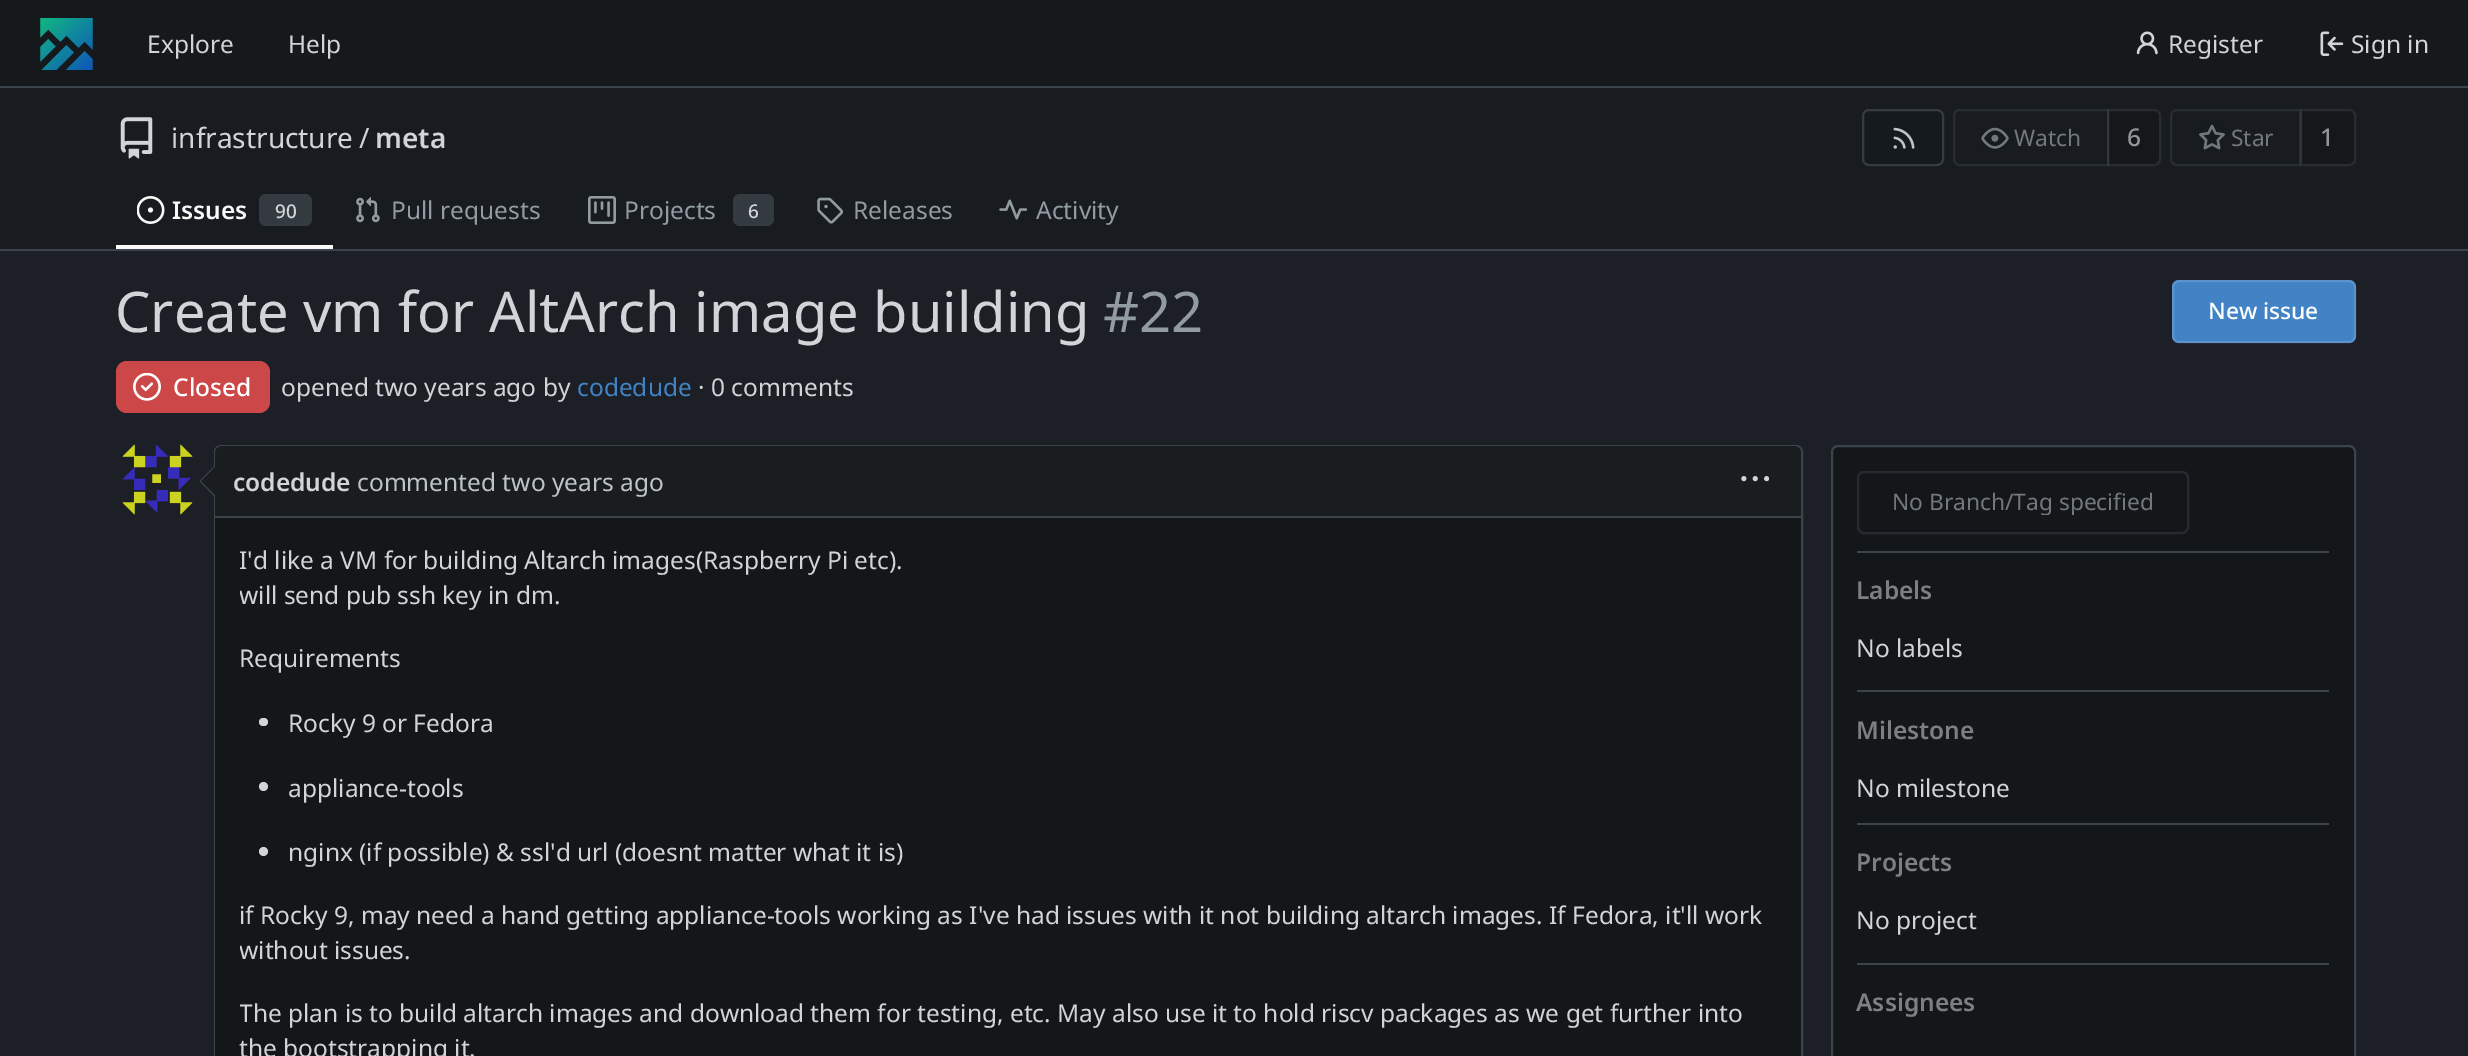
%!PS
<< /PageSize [2468 1056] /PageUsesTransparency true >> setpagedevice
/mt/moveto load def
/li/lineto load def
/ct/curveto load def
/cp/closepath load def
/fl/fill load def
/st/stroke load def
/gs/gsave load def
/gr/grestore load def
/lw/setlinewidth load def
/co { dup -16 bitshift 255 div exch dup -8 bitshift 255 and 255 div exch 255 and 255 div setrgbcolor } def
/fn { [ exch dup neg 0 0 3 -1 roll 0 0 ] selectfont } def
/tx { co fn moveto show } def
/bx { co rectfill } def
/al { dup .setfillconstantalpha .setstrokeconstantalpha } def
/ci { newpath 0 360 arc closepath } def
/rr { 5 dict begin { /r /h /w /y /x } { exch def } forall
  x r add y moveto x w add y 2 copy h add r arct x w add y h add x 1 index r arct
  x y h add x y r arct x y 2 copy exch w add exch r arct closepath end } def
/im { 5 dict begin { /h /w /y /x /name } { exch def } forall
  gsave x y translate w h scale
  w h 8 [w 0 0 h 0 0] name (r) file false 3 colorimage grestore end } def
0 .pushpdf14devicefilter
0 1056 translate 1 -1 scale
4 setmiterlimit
0 0 2468 1056 16#1C1F25 bx
0 0 2468 86 16#16191C bx
0 86 2468 2 16#3B444A bx
(media/1.raw) 40 18 53 52 im
(media/2.raw) 2136 31 22 24 im
(media/3.raw) 2320 31 24 25 im
0 88 2468 161 16#181C20 bx
(media/4.raw) 120 117 33 42 im
16#151A1E co
1863 110 80 55 6 rr gs fl gr
16#363A41 co
2 lw
st
(media/5.raw) 1893 127 22 22 im
16#282D32 co
1960 110 mt 2108 110 li 2108 165 li 1960 165 li 1956.5 165 1954 162.5 1954 159 ct 1954 116 li 1954 112.5 1956.5 110 1960 110 ct cp st
(media/6.raw) 1981 127 28 22 im
0.14 al
16#000000 co
2107 109 mt 2154 109 li 2158 109 2161 112 2161 116 ct 2161 159 li 2161 163 2158 166 2154 166 ct 2107 166 li cp fl
0.09 al
16#E8E8FF co
2108 110 mt 2154 110 li 2157.5 110 2160 112.5 2160 116 ct 2160 159 li 2160 162.5 2157.5 165 2154 165 ct 2108 165 li cp st
1 al
16#282D32 co
2177 110 mt 2300 110 li 2300 165 li 2177 165 li 2173.5 165 2171 162.5 2171 159 ct 2171 116 li 2171 112.5 2173.5 110 2177 110 ct cp st
(media/7.raw) 2199 124 26 26 im
0.14 al
16#000000 co
2300 109 mt 2349 109 li 2353 109 2356 112 2356 116 ct 2356 159 li 2356 163 2353 166 2349 166 ct 2300 166 li cp fl
0.09 al
16#E8E8FF co
2301 110 mt 2349 110 li 2352.5 110 2355 112.5 2355 116 ct 2355 159 li 2355 162.5 2352.5 165 2349 165 ct 2301 165 li cp st
1 al
116 245 217 4 16#F8F8F9 bx
(media/8.raw) 137 196 28 28 im
16#333A40 co
259 194 53 32 7 rr fl
(media/9.raw) 356 197 24 26 im
(media/10.raw) 588 196 28 28 im
733 194 41 32 7 rr fl
(media/11.raw) 817 197 27 27 im
(media/12.raw) 999 199 28 21 im
0 249 2468 2 16#3B444A bx
16#4183C4 co
2172 280 184 63 7 rr fl
0.16 al
16#E8E8FF co
2173 281 182 61 6 rr st
1 al
16#CC4848 co
116 361 154 52 11 rr fl
(media/13.raw) 133 373 28 28 im
(media/14.raw) 122 444 71 71 im
16#3B444A co
215 446 1587 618 6 rr st
16#1A1D1F co
222 446 mt 1794 446 li 1798 446 1801 449 1801 453 ct 1801 518 li 215 518 li 215 453 li 215 449 218 446 222 446 ct cp fl
215 516 1586 2 16#3B444A bx
215 465.5 mt 215 497 li 199.5 481 li cp fl
16#1A1D1F co
215 467 mt 215 495 li 201 481 li cp fl
(media/15.raw) 1741 476 28 6 im
215 518 1586 538 16#14171A bx
16#D1D5D8 co
259 718 9 8 4 rr fl
263.5 786.5 4.5 ci fl
263.5 851.5 4.5 ci fl
16#14171A co
1832 446 523 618 6 rr gs fl gr
16#3B444A co
st
16#272B2F co
1858 472 330 61 6 rr st
1857 551 472 2 16#3B444A bx
1857 690 472 2 16#3B444A bx
1857 823 472 2 16#3B444A bx
1857 963 472 2 16#3B444A bx
(Explore) 147 53 /NotoSans-Regular 24.5 16#D1D5D8 tx
(Help) 288 53 /NotoSans-Regular 24.5 16#D1D5D8 tx
(Register) 2168 53 /NotoSans-Regular 24.5 16#D1D5D8 tx
(Sign in) 2351 53 /NotoSans-Regular 24.5 16#D1D5D8 tx
(infrastructure) 171 148 /NotoSans-Regular 28 16#D1D5D8 tx
(/) 359 148 /NotoSans-Regular 28 16#D1D5D8 tx
(meta) 375 148 /NotoSans-SemiBold 28 16#D1D5D8 tx
(Watch) 2014 146 /NotoSans-Regular 22.75 16#73787C tx
(6) 2127 146 /NotoSans-Medium 24.5 16#939597 tx
(Star) 2231 146 /NotoSans-Regular 22.75 16#73787C tx
(1) 2320 146 /NotoSans-Medium 24.5 16#939597 tx
(Issues) 172 219 /NotoSans-SemiBold 24.5 16#F8F8F9 tx
(90) 275 218 /NotoSans-Medium 19 16#D1D5D8 tx
(Pull requests) 391 219 /NotoSans-Regular 24.5 16#929BA2 tx
(Projects) 624 219 /NotoSans-Regular 24.5 16#929BA2 tx
(6) 748 218 /NotoSans-Medium 19 16#D1D5D8 tx
(Releases) 853 219 /NotoSans-Regular 24.5 16#929BA2 tx
(Activity) 1036 219 /NotoSans-Regular 24.5 16#929BA2 tx
(Create vm for AltArch image building) 115 332 /NotoSans-Regular 56 16#D1D5D8 tx
(#22) 1103 332 /NotoSans-Regular 56 16#929BA2 tx
(New issue) 2208 319 /NotoSans-Medium 22.75 16#FFFFFF tx
(Closed) 173 396 /NotoSans-Medium 24.5 16#FFFFFF tx
(opened two years ago by) 281 396 /NotoSans-Regular 24.5 16#D1D5D8 tx
(codedude) 577 396 /NotoSans-Regular 24.5 16#4183C4 tx
(· 0 comments) 698 396 /NotoSans-Regular 24.5 16#D1D5D8 tx
(codedude) 233 491 /NotoSans-SemiBold 24.5 16#D1D5D8 tx
(commented two years ago) 357 491 /NotoSans-Regular 24.5 16#BDC3C7 tx
gs
240 543 1536 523 rectclip
(I'd like a VM for building Altarch images\(Raspberry Pi etc\).) 239 569 /NotoSans-Regular 24.5 16#D1D5D8 tx
(will send pub ssh key in dm.) 239 604 /NotoSans-Regular 24.5 16#D1D5D8 tx
gr
(Requirements) 239 667 /NotoSans-Regular 24.5 16#D1D5D8 tx
(Rocky 9 or Fedora) 288 732 /NotoSans-Regular 24.5 16#D1D5D8 tx
(appliance-tools) 288 797 /NotoSans-Regular 24.5 16#D1D5D8 tx
(nginx \(if possible\) & ssl'd url \(doesnt matter what it is\)) 288 861 /NotoSans-Regular 24.5 16#D1D5D8 tx
(if Rocky 9, may need a hand getting appliance-tools working as I've had issues with it not building altarch images. If Fedora, it'll work) 239 924 /NotoSans-Regular 24.5 16#D1D5D8 tx
gs
240 543 1536 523 rectclip
(without issues.) 239 959 /NotoSans-Regular 24.5 16#D1D5D8 tx
(The plan is to build altarch images and download them for testing, etc.) 239 1022 /NotoSans-Regular 24.5 16#D1D5D8 tx
gr
(May also use it to hold riscv packages as we get further into) 1057 1022 /NotoSans-Regular 24.5 16#D1D5D8 tx
(the bootstrapping it.) 239 1057 /NotoSans-Regular 24.5 16#D1D5D8 tx
gs
1892 492 262 23 rectclip
(No Branch/Tag specified) 1892 510 /NotoSans-Regular 22.75 16#73787C tx
gr
(Labels) 1856 599 /NotoSans-SemiBold 24.5 16#7C8083 tx
(No labels) 1856 657 /NotoSans-Regular 24.5 16#D1D5D8 tx
(Milestone) 1856 739 /NotoSans-SemiBold 24.5 16#7C8083 tx
(No milestone) 1856 797 /NotoSans-Regular 24.5 16#D1D5D8 tx
(Projects) 1856 871 /NotoSans-SemiBold 24.5 16#7C8083 tx
(No project) 1856 929 /NotoSans-Regular 24.5 16#D1D5D8 tx
(Assignees) 1856 1011 /NotoSans-SemiBold 24.5 16#7C8083 tx
.poppdf14devicefilter showpage
